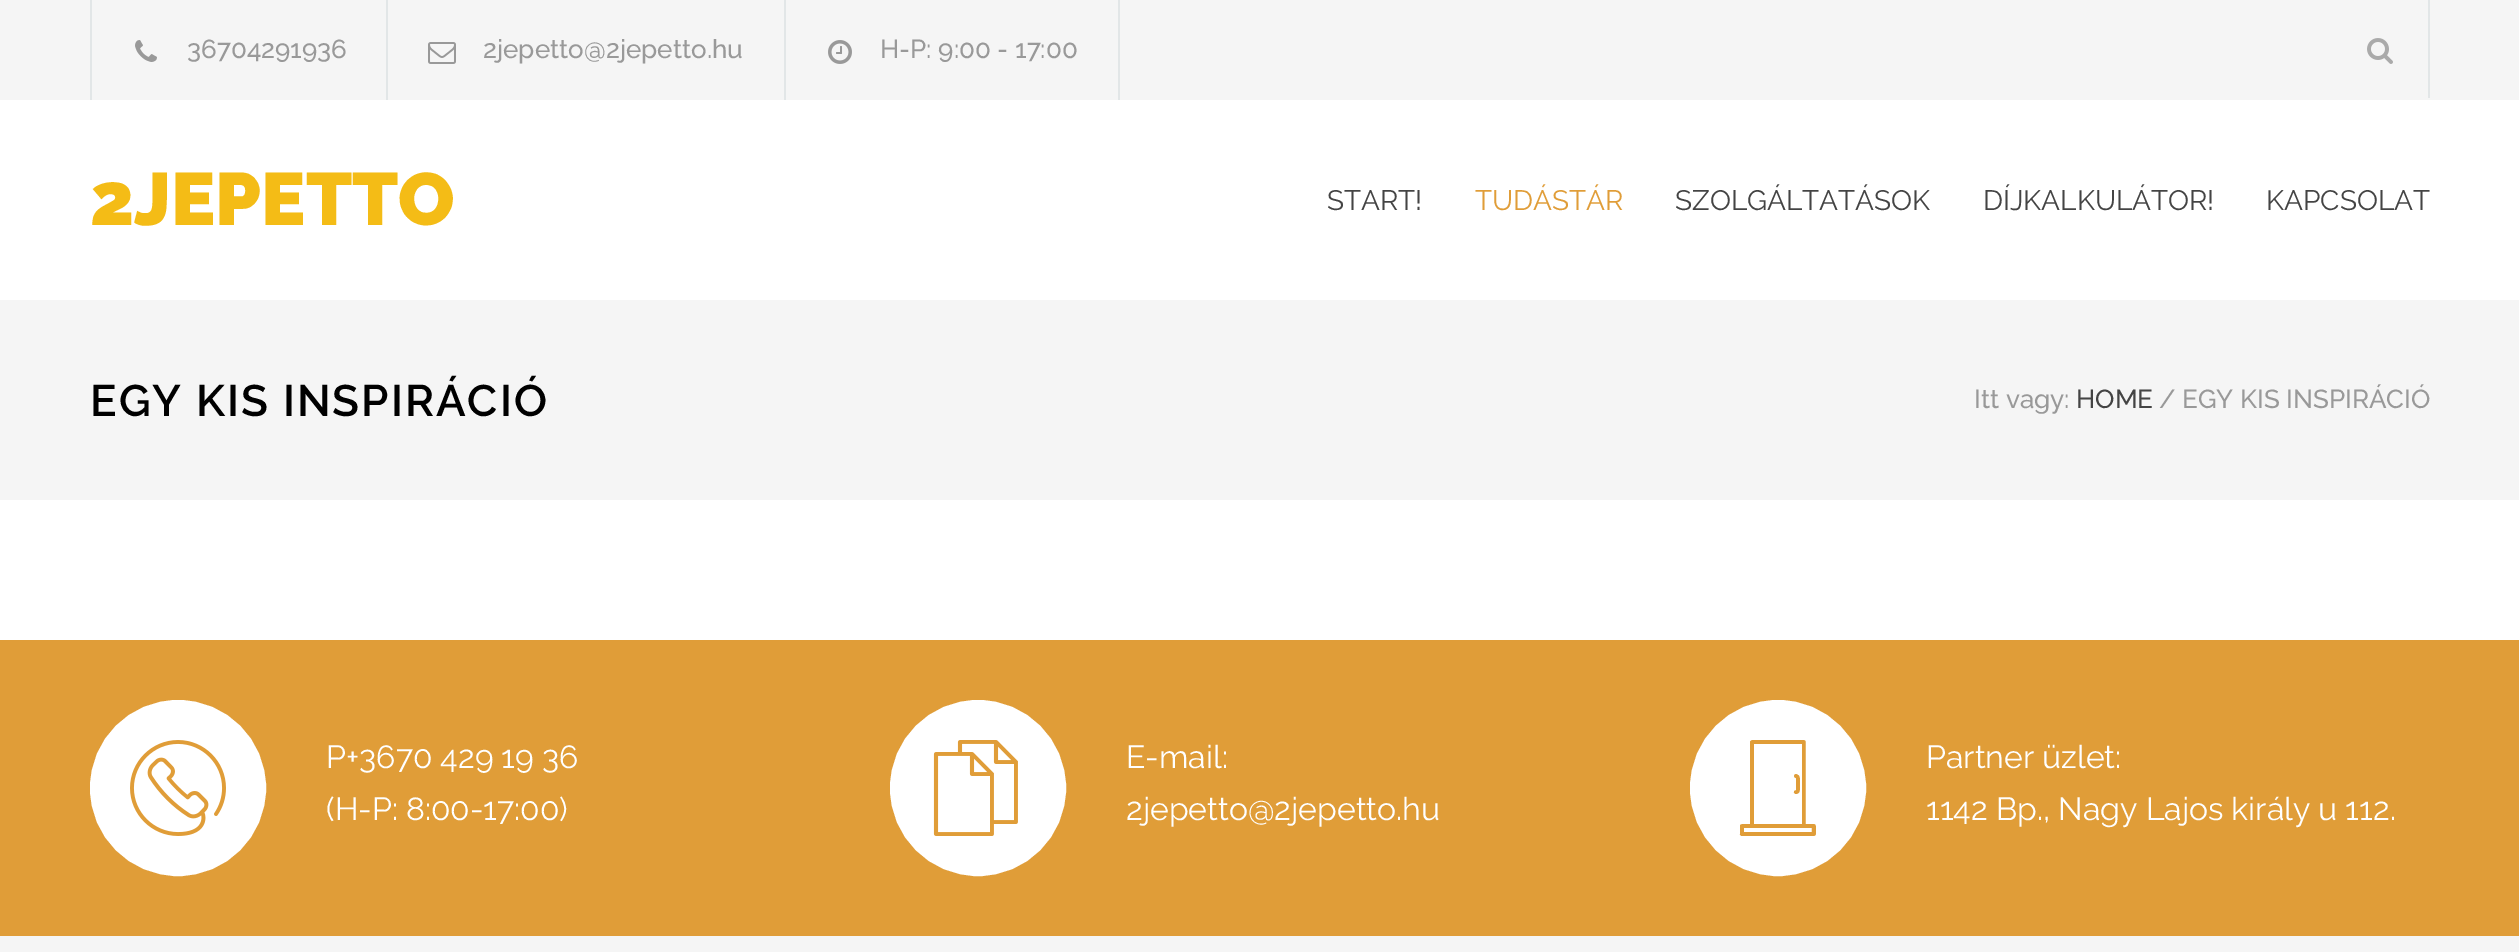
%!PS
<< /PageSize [2519 952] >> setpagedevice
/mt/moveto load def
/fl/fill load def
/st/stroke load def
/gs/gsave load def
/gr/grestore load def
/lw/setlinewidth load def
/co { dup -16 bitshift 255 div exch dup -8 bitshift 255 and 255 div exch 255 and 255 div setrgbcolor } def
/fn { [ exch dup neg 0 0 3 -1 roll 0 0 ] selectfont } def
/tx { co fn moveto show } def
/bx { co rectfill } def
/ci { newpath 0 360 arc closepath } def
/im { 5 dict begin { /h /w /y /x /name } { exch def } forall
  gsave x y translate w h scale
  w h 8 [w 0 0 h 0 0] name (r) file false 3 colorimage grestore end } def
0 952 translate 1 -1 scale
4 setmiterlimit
0 0 2519 952 16#FFFFFF bx
0 0 2519 100 16#F5F5F5 bx
386 0 2 100 16#E2E6E7 bx
90 0 2 100 16#E2E6E7 bx
(media/1.raw) 135 40 22 22 im
784 0 2 100 16#E2E6E7 bx
(media/2.raw) 428 42 28 22 im
1118 0 2 100 16#E2E6E7 bx
(media/3.raw) 828 40 24 24 im
2428 0 2 98 16#E2E6E7 bx
(media/4.raw) 2367 38 26 26 im
0 300 2519 200 16#F5F5F5 bx
0 640 2519 296 16#E09D38 bx
16#FFFFFF co
178 788 87 ci gs fl gr
2 lw
st
(media/5.raw) 130 740 96 96 im
978 788 87 ci gs fl gr
st
(media/6.raw) 933 740 85 96 im
1778 788 87 ci gs fl gr
st
0 936 2519 16 16#F5F5F5 bx
(36704291936) 187 58 /Raleway-Medium 26 16#999999 tx
(2jepetto@2jepetto.hu) 483 58 /Raleway-Medium 26 16#999999 tx
(H-P: 9:00 - 17:00) 880 58 /Raleway-Medium 26 16#999999 tx
(2JEPETTO) 90 225 /Raleway-Black 74 16#F4BC16 tx
(START!) 1327 210 /Raleway-Regular 28 16#444444 tx
(TUDÁSTÁR) 1475 210 /Raleway-Regular 28 16#E09D38 tx
(SZOLGÁLTATÁSOK) 1675 210 /Raleway-Regular 28 16#444444 tx
(DÍJKALKULÁTOR!) 1983 210 /Raleway-Regular 28 16#444444 tx
(KAPCSOLAT) 2266 210 /Raleway-Regular 28 16#444444 tx
/Raleway-SemiBold 44 fn
16#000000 co
90 416 mt 2 0 (EGY KIS INSPIRÁCIÓ) ashow
(Itt vagy:) 1974 408 /Raleway-Medium 26 16#999999 tx
(HOME) 2076 408 /Raleway-Medium 26 16#444444 tx
(/) 2159 408 /Raleway-Medium 26 16#999999 tx
(EGY KIS INSPIRÁCIÓ) 2182 408 /Raleway-Medium 26 16#999999 tx
(P+3670 429 19 36) 326 768 /Raleway-Regular 32 16#FFFFFF tx
(\(H-P: 8:00-17:00\)) 326 820 /Raleway-Regular 32 16#FFFFFF tx
(E-mail:) 1126 768 /Raleway-Regular 32 16#FFFFFF tx
(2jepetto@2jepetto.hu) 1126 820 /Raleway-Regular 32 16#FFFFFF tx
(4) 1730 836 /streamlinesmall-Regular 96 16#E09D38 tx
(Partner üzlet:) 1926 768 /Raleway-Regular 32 16#FFFFFF tx
(1142 Bp., Nagy Lajos király u 112.) 1926 820 /Raleway-Regular 32 16#FFFFFF tx
showpage
